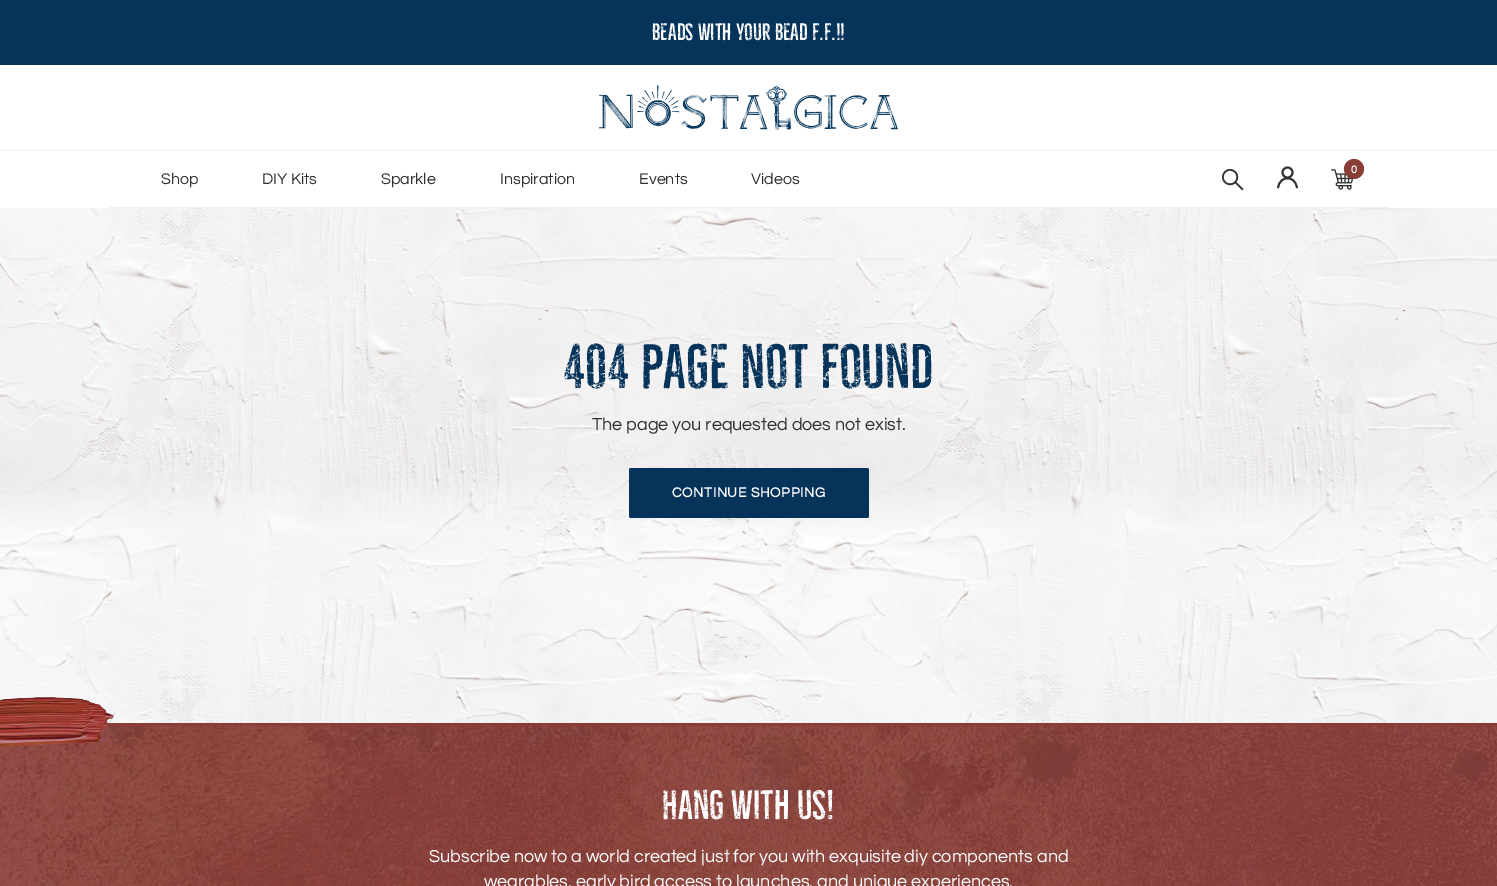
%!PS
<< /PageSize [1497 886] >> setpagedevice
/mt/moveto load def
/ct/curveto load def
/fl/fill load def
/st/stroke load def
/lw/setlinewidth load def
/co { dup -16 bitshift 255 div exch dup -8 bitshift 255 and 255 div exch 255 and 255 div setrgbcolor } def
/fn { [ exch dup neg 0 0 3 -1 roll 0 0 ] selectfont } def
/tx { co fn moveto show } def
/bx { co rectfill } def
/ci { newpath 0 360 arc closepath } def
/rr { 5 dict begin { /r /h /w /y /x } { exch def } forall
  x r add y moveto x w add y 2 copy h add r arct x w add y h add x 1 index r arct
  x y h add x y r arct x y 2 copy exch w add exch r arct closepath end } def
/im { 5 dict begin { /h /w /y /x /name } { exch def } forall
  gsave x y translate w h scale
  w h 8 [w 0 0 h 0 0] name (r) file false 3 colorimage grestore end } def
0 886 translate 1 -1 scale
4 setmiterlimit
0 0 1497 886 16#FFFFFF bx
0 0 1497 65 16#053359 bx
0 150 1497 1 16#EFEFEF bx
(media/1.raw) 599 85 299 45 im
109 207 1280 1 16#EFEFEF bx
(media/2.raw) 1222 169 22 22 im
16#323131 co
1.9 lw
1278 188 mt 1279.5 175 1295.5 175 1297 188 ct st
1287.5 172.5 5 ci st
(media/3.raw) 1331 169 23 21 im
16#893D37 co
1354 169 10 ci fl
(media/4.raw) 0 208 1497 515 im
16#053359 co
629 468 240 50 2 rr fl
(media/5.raw) 0 723 1497 163 im
(media/6.raw) 0 697 114 50 im
(Beads With Your Bead F.F.!!) 652 40 /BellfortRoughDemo-Regular 22 16#FFFFFF tx
(0) 1351 173 /Questrial-Bold 11 16#FFFFFF tx
(Shop) 161 184 /Questrial-Regular 16 16#323131 tx
(DIY Kits) 262 184 /Questrial-Regular 16 16#323131 tx
(Sparkle) 381 184 /Questrial-Regular 16 16#323131 tx
(Inspiration) 500 184 /Questrial-Regular 16 16#323131 tx
(Events) 639 184 /Questrial-Regular 16 16#323131 tx
(Videos) 751 184 /Questrial-Regular 16 16#323131 tx
(404 Page Not Found) 563 388 /BellfortRoughDemo-Regular 58 16#053359 tx
(The page you requested does not exist.) 592 430 /Questrial-Regular 18 16#323131 tx
/Questrial-Bold 14 fn
16#FFFFFF co
672 497 mt .6 0 (CONTINUE SHOPPING) ashow
(Hang with us!) 662 819 /BellfortRoughDemo-Regular 38 16#FFFFFF tx
(Subscribe now to a world created just for you with exquisite diy components and) 429 862 /Questrial-Regular 18 16#FFFFFF tx
(wearables, early bird access to launches, and unique experiences.) 484 887 /Questrial-Regular 18 16#FFFFFF tx
showpage
